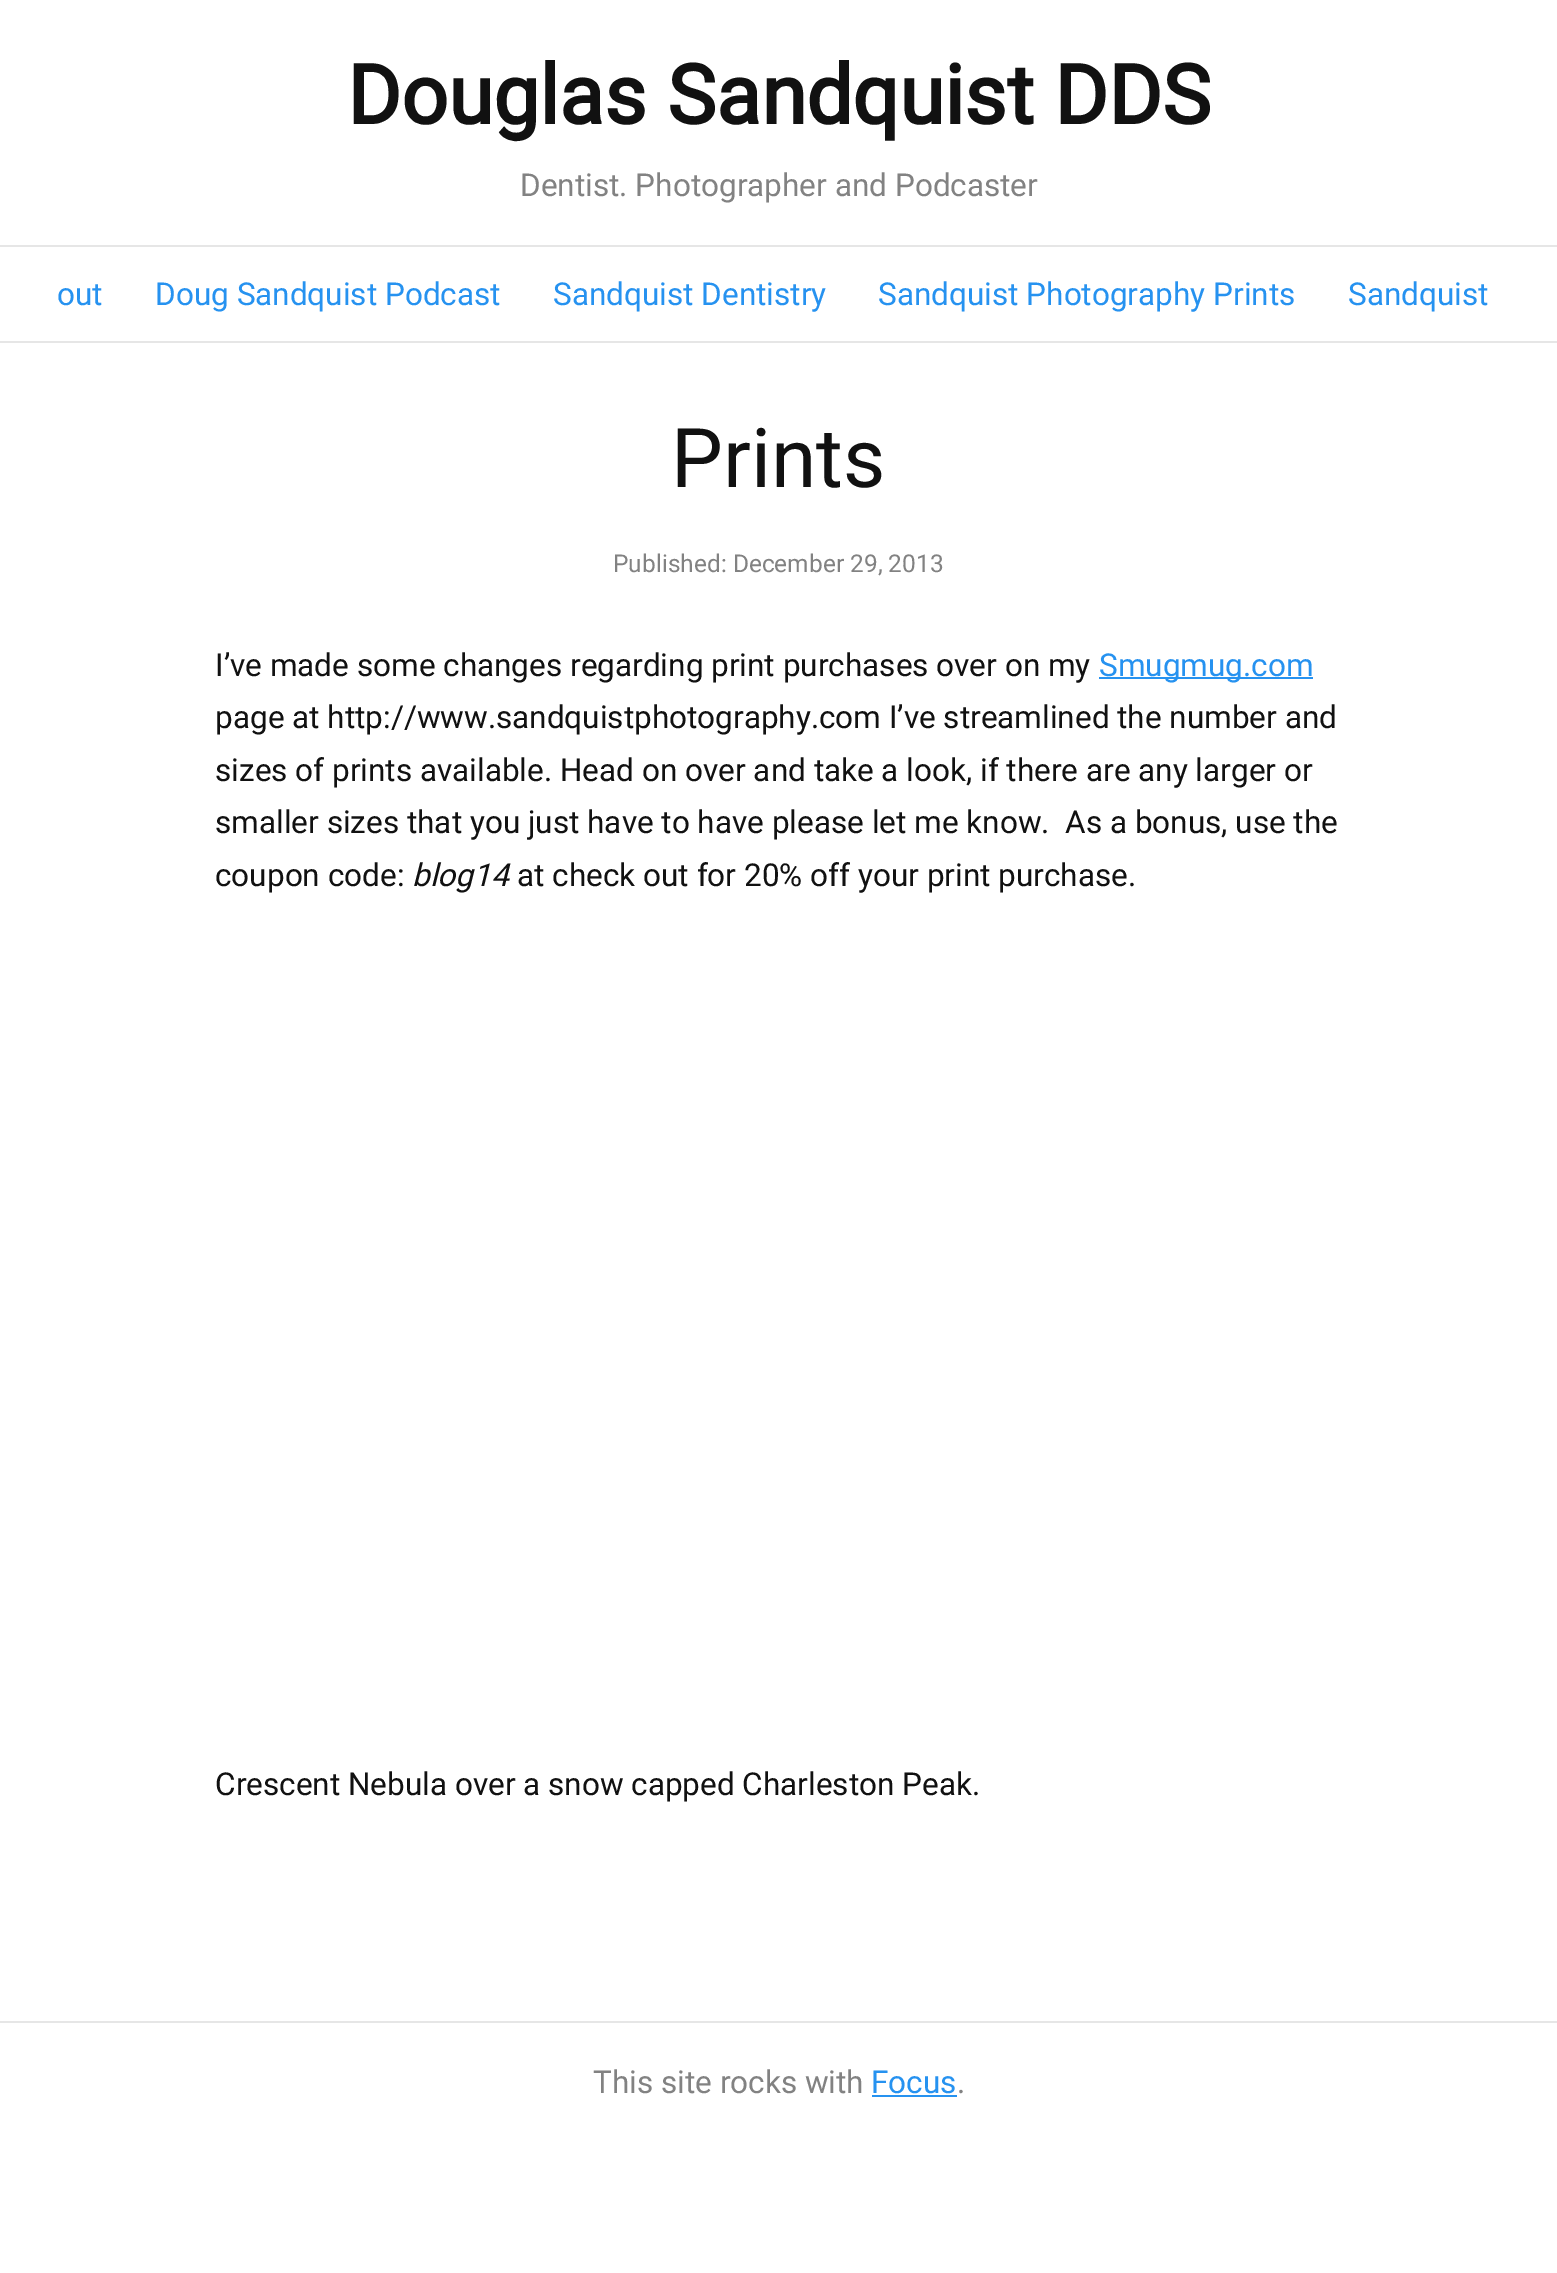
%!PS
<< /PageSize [1557 2273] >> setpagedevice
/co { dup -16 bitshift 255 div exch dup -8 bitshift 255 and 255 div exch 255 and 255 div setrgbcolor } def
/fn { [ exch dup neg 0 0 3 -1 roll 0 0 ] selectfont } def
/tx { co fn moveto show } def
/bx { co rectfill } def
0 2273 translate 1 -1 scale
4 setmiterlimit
0 0 1557 2273 16#FFFFFF bx
0 245 1557 2 16#E6E6E6 bx
0 341 1557 2 16#E6E6E6 bx
1099 677 214 2 16#2692F0 bx
0 2021 1557 2 16#E6E6E6 bx
872 2095 85 2 16#2692F0 bx
(Douglas Sandquist DDS) 347 124 /Roboto-Bold 82.25 16#111111 tx
(Dentist. Photographer and Podcaster) 520 196 /Roboto-Regular 31.5 16#828282 tx
(out) 57 305 /Roboto-Regular 31.5 16#2692F0 tx
(Doug Sandquist Podcast) 155 305 /Roboto-Regular 31.5 16#2692F0 tx
(Sandquist Dentistry) 553 305 /Roboto-Regular 31.5 16#2692F0 tx
(Sandquist Photography Prints) 878 305 /Roboto-Regular 31.5 16#2692F0 tx
(Sandquist) 1348 305 /Roboto-Regular 31.5 16#2692F0 tx
(Prints) 671 487 /Roboto-Regular 82.25 16#111111 tx
(Published: December 29, 2013) 613 572 /Roboto-Regular 24.5 16#828282 tx
(I’ve made some changes regarding print purchases over on my) 215 676 /Roboto-Regular 31.5 16#111111 tx
(Smugmug.com) 1099 676 /Roboto-Regular 31.5 16#2692F0 tx
(page at http://www.sandquistphotography.com I’ve streamlined the number and) 215 728 /Roboto-Regular 31.5 16#111111 tx
(sizes of prints available. Head on over and take a look, if there are any larger or) 215 781 /Roboto-Regular 31.5 16#111111 tx
(smaller sizes that you just have to have please let me know.  As a bonus, use the) 215 833 /Roboto-Regular 31.5 16#111111 tx
(coupon code:) 215 886 /Roboto-Regular 31.5 16#111111 tx
(blog14) 412 886 /Roboto-Italic 31.5 16#111111 tx
(at check out for 20% off your print purchase.) 517 886 /Roboto-Regular 31.5 16#111111 tx
(Crescent Nebula over a snow capped Charleston Peak.) 215 1795 /Roboto-Regular 31.5 16#111111 tx
(This site rocks with) 593 2093 /Roboto-Regular 31.5 16#828282 tx
(Focus) 871 2093 /Roboto-Regular 31.5 16#2692F0 tx
(.) 957 2093 /Roboto-Regular 31.5 16#828282 tx
showpage
